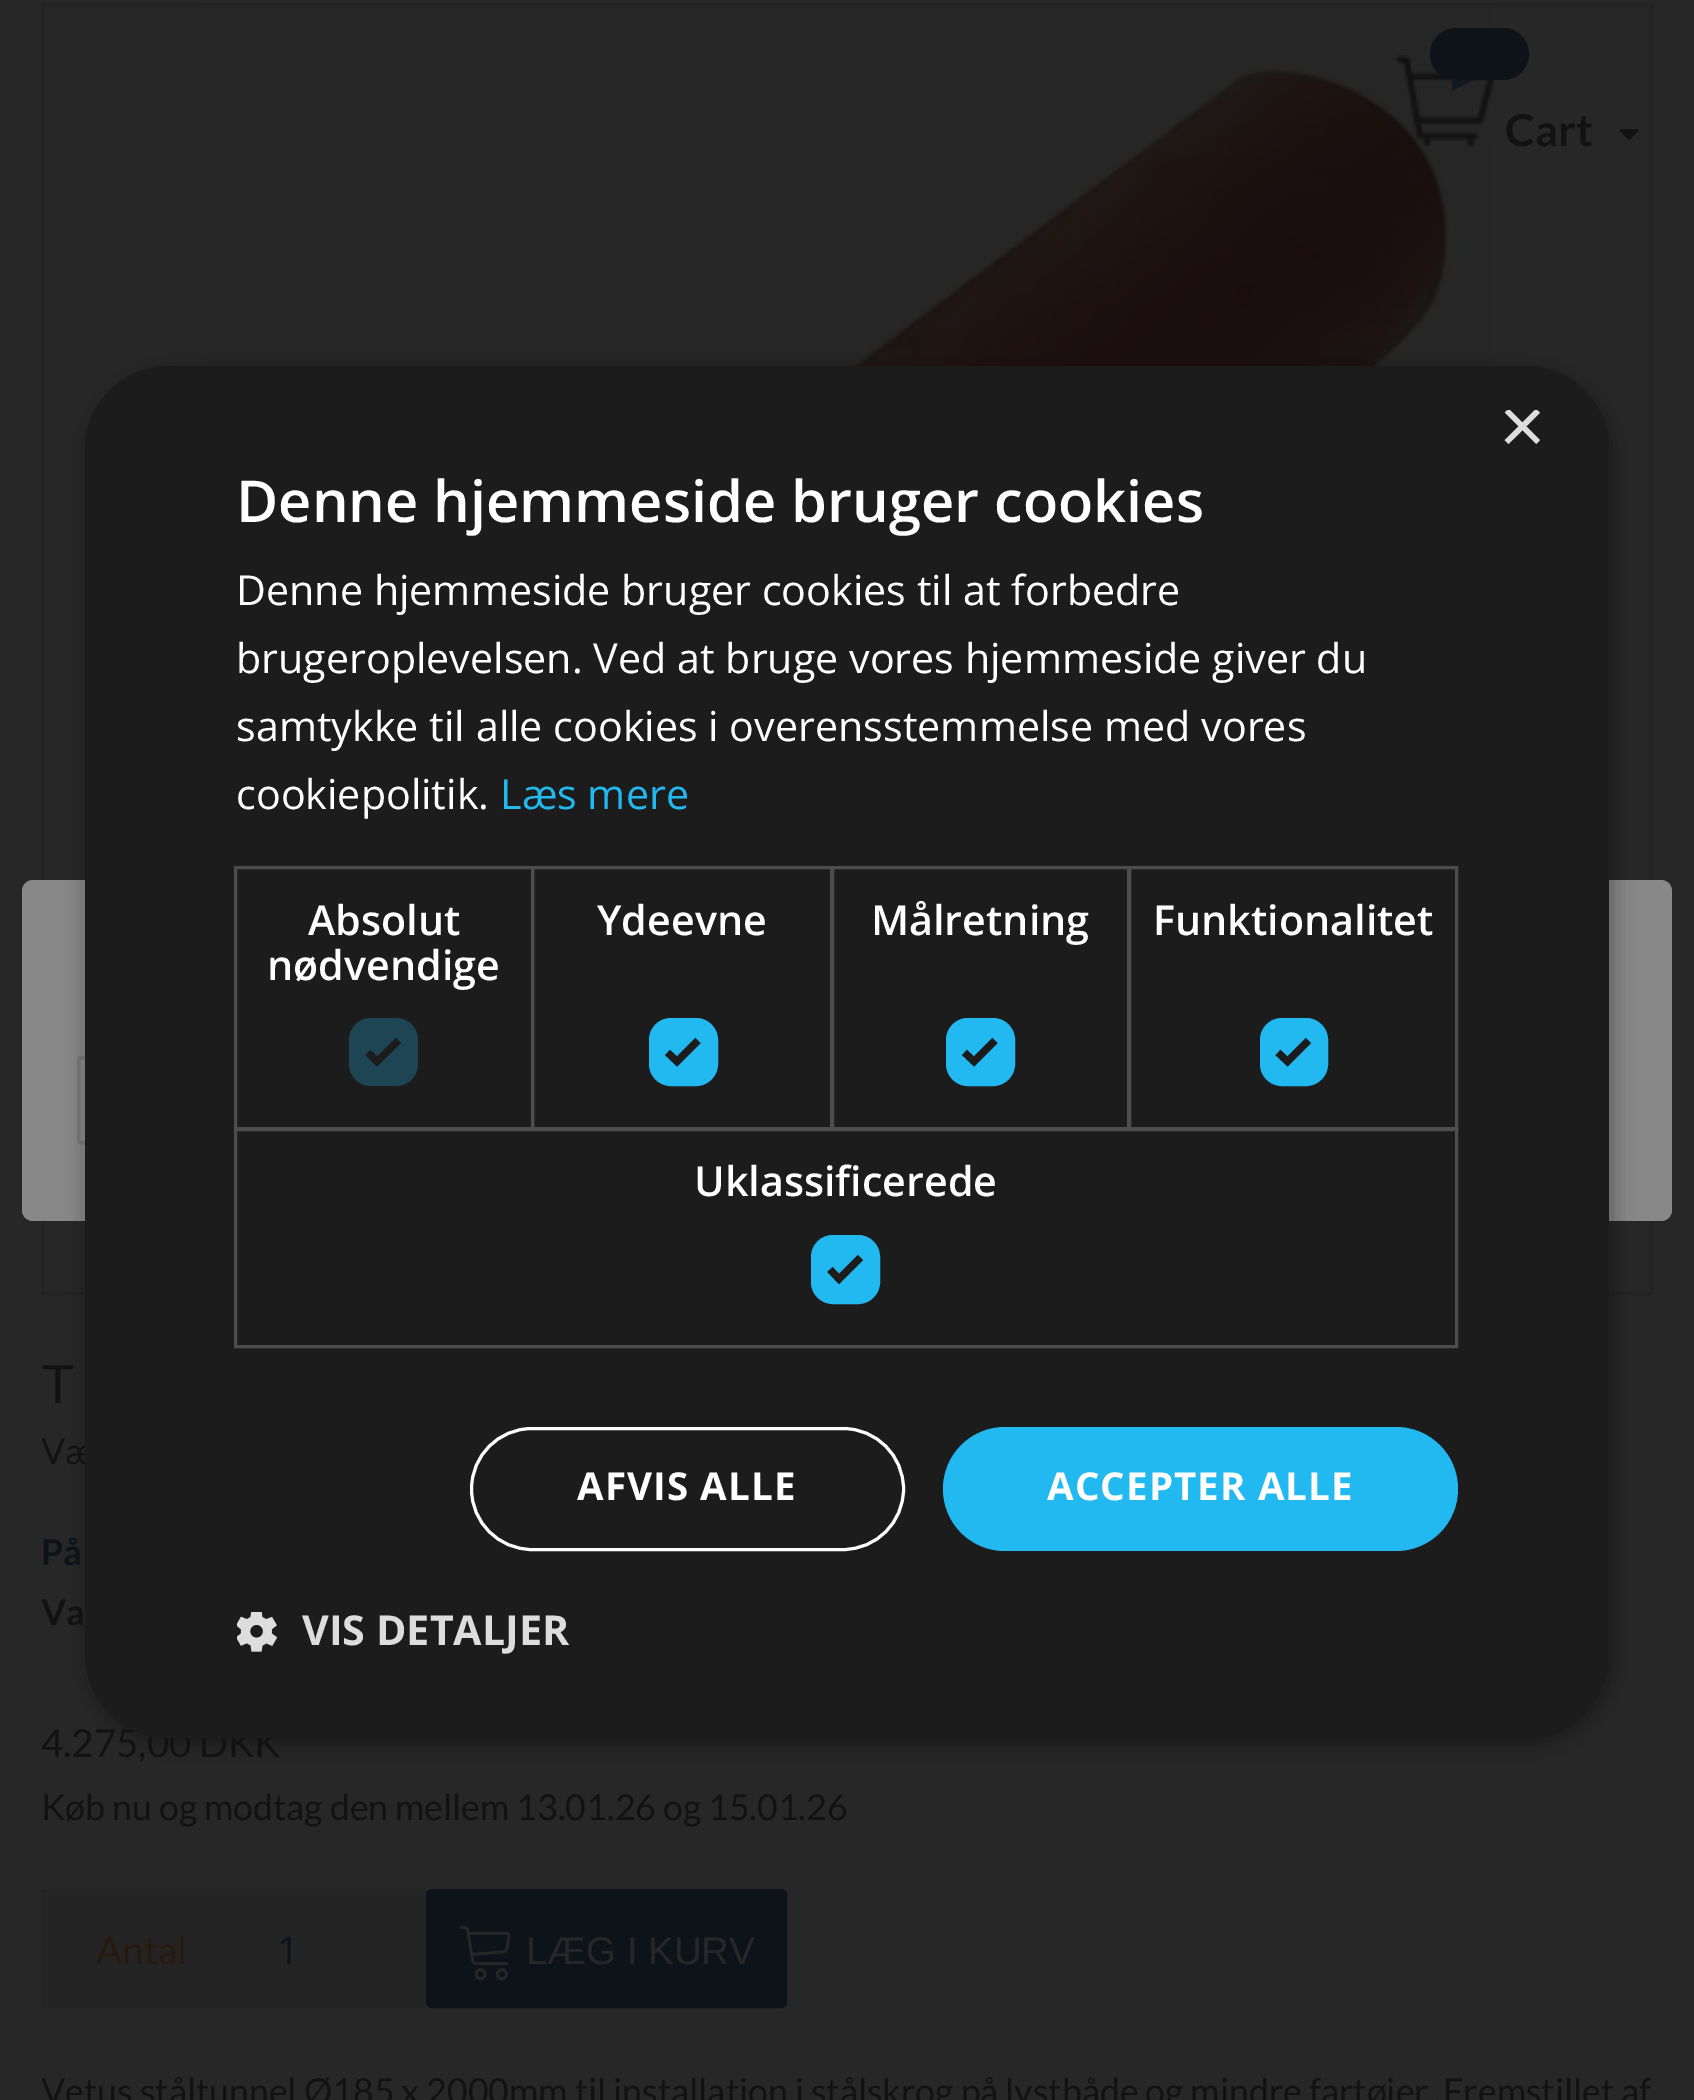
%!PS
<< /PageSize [1694 2100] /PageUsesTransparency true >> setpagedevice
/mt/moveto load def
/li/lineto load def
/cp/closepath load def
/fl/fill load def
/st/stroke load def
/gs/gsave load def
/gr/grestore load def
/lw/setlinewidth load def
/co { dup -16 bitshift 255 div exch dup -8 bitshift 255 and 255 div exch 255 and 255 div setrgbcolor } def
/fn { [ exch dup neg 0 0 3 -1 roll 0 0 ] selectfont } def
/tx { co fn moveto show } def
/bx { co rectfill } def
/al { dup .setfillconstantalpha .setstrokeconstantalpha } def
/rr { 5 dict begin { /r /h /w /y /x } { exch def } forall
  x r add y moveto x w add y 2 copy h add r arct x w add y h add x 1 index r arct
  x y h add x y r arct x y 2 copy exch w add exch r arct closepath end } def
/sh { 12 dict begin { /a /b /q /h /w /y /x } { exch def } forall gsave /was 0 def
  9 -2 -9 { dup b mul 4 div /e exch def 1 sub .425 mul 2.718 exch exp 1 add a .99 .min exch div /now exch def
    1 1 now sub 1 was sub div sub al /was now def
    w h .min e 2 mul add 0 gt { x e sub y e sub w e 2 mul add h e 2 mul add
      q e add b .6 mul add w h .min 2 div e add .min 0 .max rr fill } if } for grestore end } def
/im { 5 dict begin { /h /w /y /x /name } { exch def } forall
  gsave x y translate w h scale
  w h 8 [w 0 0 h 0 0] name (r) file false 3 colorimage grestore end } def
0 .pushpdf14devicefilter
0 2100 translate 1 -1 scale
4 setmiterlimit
0 0 1694 2100 16#272727 bx
16#232323 co
3 lw
42.5 4.5 1609 1289 rectstroke
(media/3.raw) 206 5 1287 361 im
(media/1.raw) 1394 55 103 92 im
16#0D1318 co
1430 28 99 52 26 rr fl
16#12191E co
1452 80 mt 1474 80 li 1452 91 li cp fl
(media/2.raw) 1619 129 20 11 im
41 1889 385 119 16#242424 bx
16#0D1318 co
427.5 1890.5 358 116 4.5 rr gs fl gr
st
(media/4.raw) 459 1925 52 56 im
16#888888 co
22 880 1650 341 11 rr fl
16#787878 co
78.5 1057.5 1028 85 1.5 rr st
16#000000 co
88 371 1524 1373 83 11 .35 sh
(Cart) 1505 146 /Lato-Bold 44 16#121212 tx
(T) 41 1403 /LiberationSans-Regular 55 16#121212 tx
(Væ) 41 1464 /Lato-Regular 35.75 16#121212 tx
(På) 41 1565 /Lato-Bold 35.75 16#0D1318 tx
(Va) 41 1625 /Lato-Bold 35.75 16#121212 tx
(4.275,00 DKK) 41 1757 /Lato-Regular 38.5 16#121212 tx
(Køb nu og modtag den mellem 13.01.26 og 15.01.26) 41 1820 /Lato-Regular 35.75 16#121212 tx
(Antal) 96 1964 /Lato-Regular 38.5 16#271A0D tx
(1) 277 1964 /OpenSans-Regular 38.5 16#0D1318 tx
(LÆG I KURV) 526 1964 /LiberationSans-Regular 38.5 16#272727 tx
(Vetus ståltunnel Ø185 x 2000mm til installation i stålskrog på lystbåde og mindre fartøjer. Fremstillet af) 41 2104 /Lato-Regular 35.75 16#121212 tx
16#1C1C1C co
85 366 1524 1372 83 rr fl
gs
1499 410 41 41 rectclip
(×) 1499 453 /LiberationSans-Regular 80 16#DDDDDD tx
gr
(Denne hjemmeside bruger cookies) 236 522 /OpenSans-SemiBold 57.75 16#FFFFFF tx
(Denne hjemmeside bruger cookies til at forbedre) 236 605 /OpenSans-Regular 41.25 16#FFFFFF tx
(brugeroplevelsen. Ved at bruge vores hjemmeside giver du) 236 673 /OpenSans-Regular 41.25 16#FFFFFF tx
(samtykke til alle cookies i overensstemmelse med vores) 236 741 /OpenSans-Regular 41.25 16#FFFFFF tx
(cookiepolitik.) 236 809 /OpenSans-Regular 41.25 16#FFFFFF tx
(Læs mere) 500 809 /OpenSans-Regular 41.25 16#22B8F0 tx
16#4D4D4D co
235.5 867.5 297 261 rectstroke
(Absolut) 308 935 /OpenSans-SemiBold 41.25 16#FFFFFF tx
(nødvendige) 267 980 /OpenSans-SemiBold 41.25 16#FFFFFF tx
16#1E4553 co
349 1018 69 68 22 rr fl
16#1C1C1C co
7.2 lw
368 1052.5 mt 377 1061.5 li 398.5 1040.5 li st
16#4D4D4D co
3 lw
532.5 867.5 299 261 rectstroke
(Ydeevne) 597 935 /OpenSans-SemiBold 41.25 16#FFFFFF tx
16#22B8F0 co
652 1021 63 62 19 rr gs fl gr
6 lw
st
16#1C1C1C co
7.2 lw
667.5 1052.5 mt 677 1061.5 li 698 1040.5 li st
16#4D4D4D co
3 lw
832.5 867.5 296 261 rectstroke
(Målretning) 871 935 /OpenSans-SemiBold 41.25 16#FFFFFF tx
16#22B8F0 co
949 1021 63 62 19 rr gs fl gr
6 lw
st
16#1C1C1C co
7.2 lw
964.5 1052.5 mt 974 1061.5 li 995 1040.5 li st
16#4D4D4D co
3 lw
1129.5 867.5 327 261 rectstroke
(Funktionalitet) 1153 935 /OpenSans-SemiBold 41.25 16#FFFFFF tx
16#22B8F0 co
1263 1021 62 62 19 rr gs fl gr
6 lw
st
16#1C1C1C co
7.2 lw
1278 1052.5 mt 1287.5 1061.5 li 1308.5 1040.5 li st
16#4D4D4D co
3 lw
235.5 1129.5 1221 217 rectstroke
(Uklassificerede) 694 1196 /OpenSans-SemiBold 41.25 16#FFFFFF tx
16#22B8F0 co
814 1238 63 63 19 rr gs fl gr
6 lw
st
16#1C1C1C co
7.2 lw
830 1269.5 mt 839 1279 li 860.5 1257.5 li st
16#FFFFFF co
3 lw
471.5 1428.5 432 121 60.5 rr st
/OpenSans-Bold 38.5 fn
577 1500 mt 1.1 0 (AFVIS ALLE) ashow
16#22B8F0 co
943 1427 515 124 62 rr fl
16#FFFFFF co
1047 1500 mt 1.1 0 (ACCEPTER ALLE) ashow
(media/5.raw) 237 1612 41 40 im
(VIS DETALJER) 302 1645 /OpenSans-Bold 41.25 16#DDDDDD tx
.poppdf14devicefilter showpage
